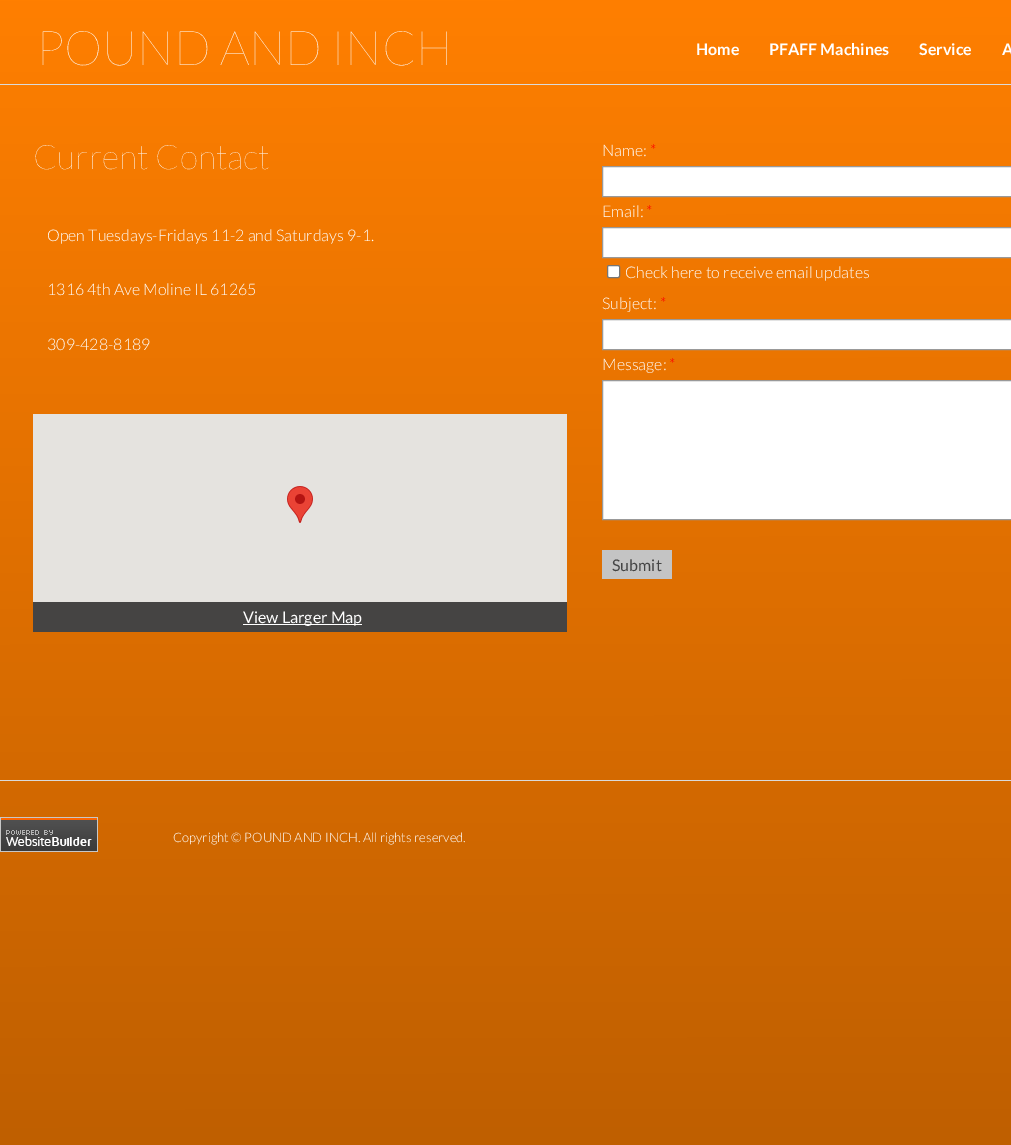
%!PS
<< /PageSize [1011 1145] >> setpagedevice
/mt/moveto load def
/li/lineto load def
/cp/closepath load def
/fl/fill load def
/st/stroke load def
/gs/gsave load def
/gr/grestore load def
/co { dup -16 bitshift 255 div exch dup -8 bitshift 255 and 255 div exch 255 and 255 div setrgbcolor } def
/fn { [ exch dup neg 0 0 3 -1 roll 0 0 ] selectfont } def
/tx { co fn moveto show } def
/bx { co rectfill } def
/rr { 5 dict begin { /r /h /w /y /x } { exch def } forall
  x r add y moveto x w add y 2 copy h add r arct x w add y h add x 1 index r arct
  x y h add x y r arct x y 2 copy exch w add exch r arct closepath end } def
/im { 5 dict begin { /h /w /y /x /name } { exch def } forall
  gsave x y translate w h scale
  w h 8 [w 0 0 h 0 0] name (r) file false 3 colorimage grestore end } def
0 1145 translate 1 -1 scale
4 setmiterlimit
0 0 1011 1145 16#FFFFFF bx
gs 0 0 mt 1011 0 li 1011 1145 li 0 1145 li cp clip newpath
<< /ShadingType 2 /ColorSpace /DeviceRGB /Coords [505 0 506 1145] /Extend [true true] /Function << /FunctionType 2 /Domain [0 1] /C0 [1 .498 0] /C1 [.749 .373 0] /N 1 >> >> shfill gr
0 84 1011 1 16#DADADA bx
16#FFFFFF co
602.5 166.5 mt 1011.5 166.5 li 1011.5 196.5 li 602.5 196.5 li cp gs fl gr
16#999999 co
st
16#FFFFFF co
602.5 227.5 mt 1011.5 227.5 li 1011.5 257.5 li 602.5 257.5 li cp gs fl gr
16#999999 co
st
16#FFFFFF co
607.5 265.5 12 12 1.5 rr gs fl gr
16#767676 co
st
16#FFFFFF co
602.5 319.5 mt 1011.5 319.5 li 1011.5 349.5 li 602.5 349.5 li cp gs fl gr
16#999999 co
st
16#FFFFFF co
602.5 380.5 mt 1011.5 380.5 li 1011.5 519.5 li 602.5 519.5 li cp gs fl gr
16#999999 co
st
602 550 70 29 16#C4C4C4 bx
33 414 534 188 16#E5E3DF bx
(media/1.raw) 287 486 26 37 im
33 602 534 30 16#454443 bx
243 624 119 1 16#FFFFFF bx
0 780 1011 1 16#DADADA bx
(media/2.raw) 0 817 98 35 im
(POUND AND INCH) 36 65 /Lato-Thin 48 16#FFFFFF tx
(Home) 696 55 /Lato-Bold 16 16#FFFFFF tx
(PFAFF Machines) 769 55 /Lato-Bold 16 16#FFFFFF tx
(Service) 919 55 /Lato-Bold 16 16#FFFFFF tx
(A) 1002 55 /Lato-Bold 16 16#FFFFFF tx
(Current Contact) 33 169 /Lato-Thin 34 16#FFFFFF tx
(Name:) 602 156 /Lato-Light 16 16#FFFFFF tx
(*) 650 156 /Lato-Light 16 16#FF0000 tx
(Email:) 602 217 /Lato-Light 16 16#FFFFFF tx
(*) 646 217 /Lato-Light 16 16#FF0000 tx
(Check here to receive email updates) 625 278 /Lato-Light 16 16#FFFFFF tx
(Subject:) 602 309 /Lato-Light 16 16#FFFFFF tx
(*) 660 309 /Lato-Light 16 16#FF0000 tx
(Message:) 602 370 /Lato-Light 16 16#FFFFFF tx
(*) 669 370 /Lato-Light 16 16#FF0000 tx
(Submit) 612 571 /Lato-Regular 16 16#444444 tx
(Open Tuesdays-Fridays 11-2 and Saturdays 9-1.) 47 241 /Lato-Light 16 16#FFFFFF tx
(1316 4th Ave Moline IL 61265) 47 295 /Lato-Light 16 16#FFFFFF tx
(309-428-8189) 47 350 /Lato-Light 16 16#FFFFFF tx
(View Larger Map) 243 623 /Lato-Regular 16 16#FFFFFF tx
(Copyright © POUND AND INCH. All rights reserved.) 173 842 /Lato-Light 13 16#FFFFFF tx
showpage
